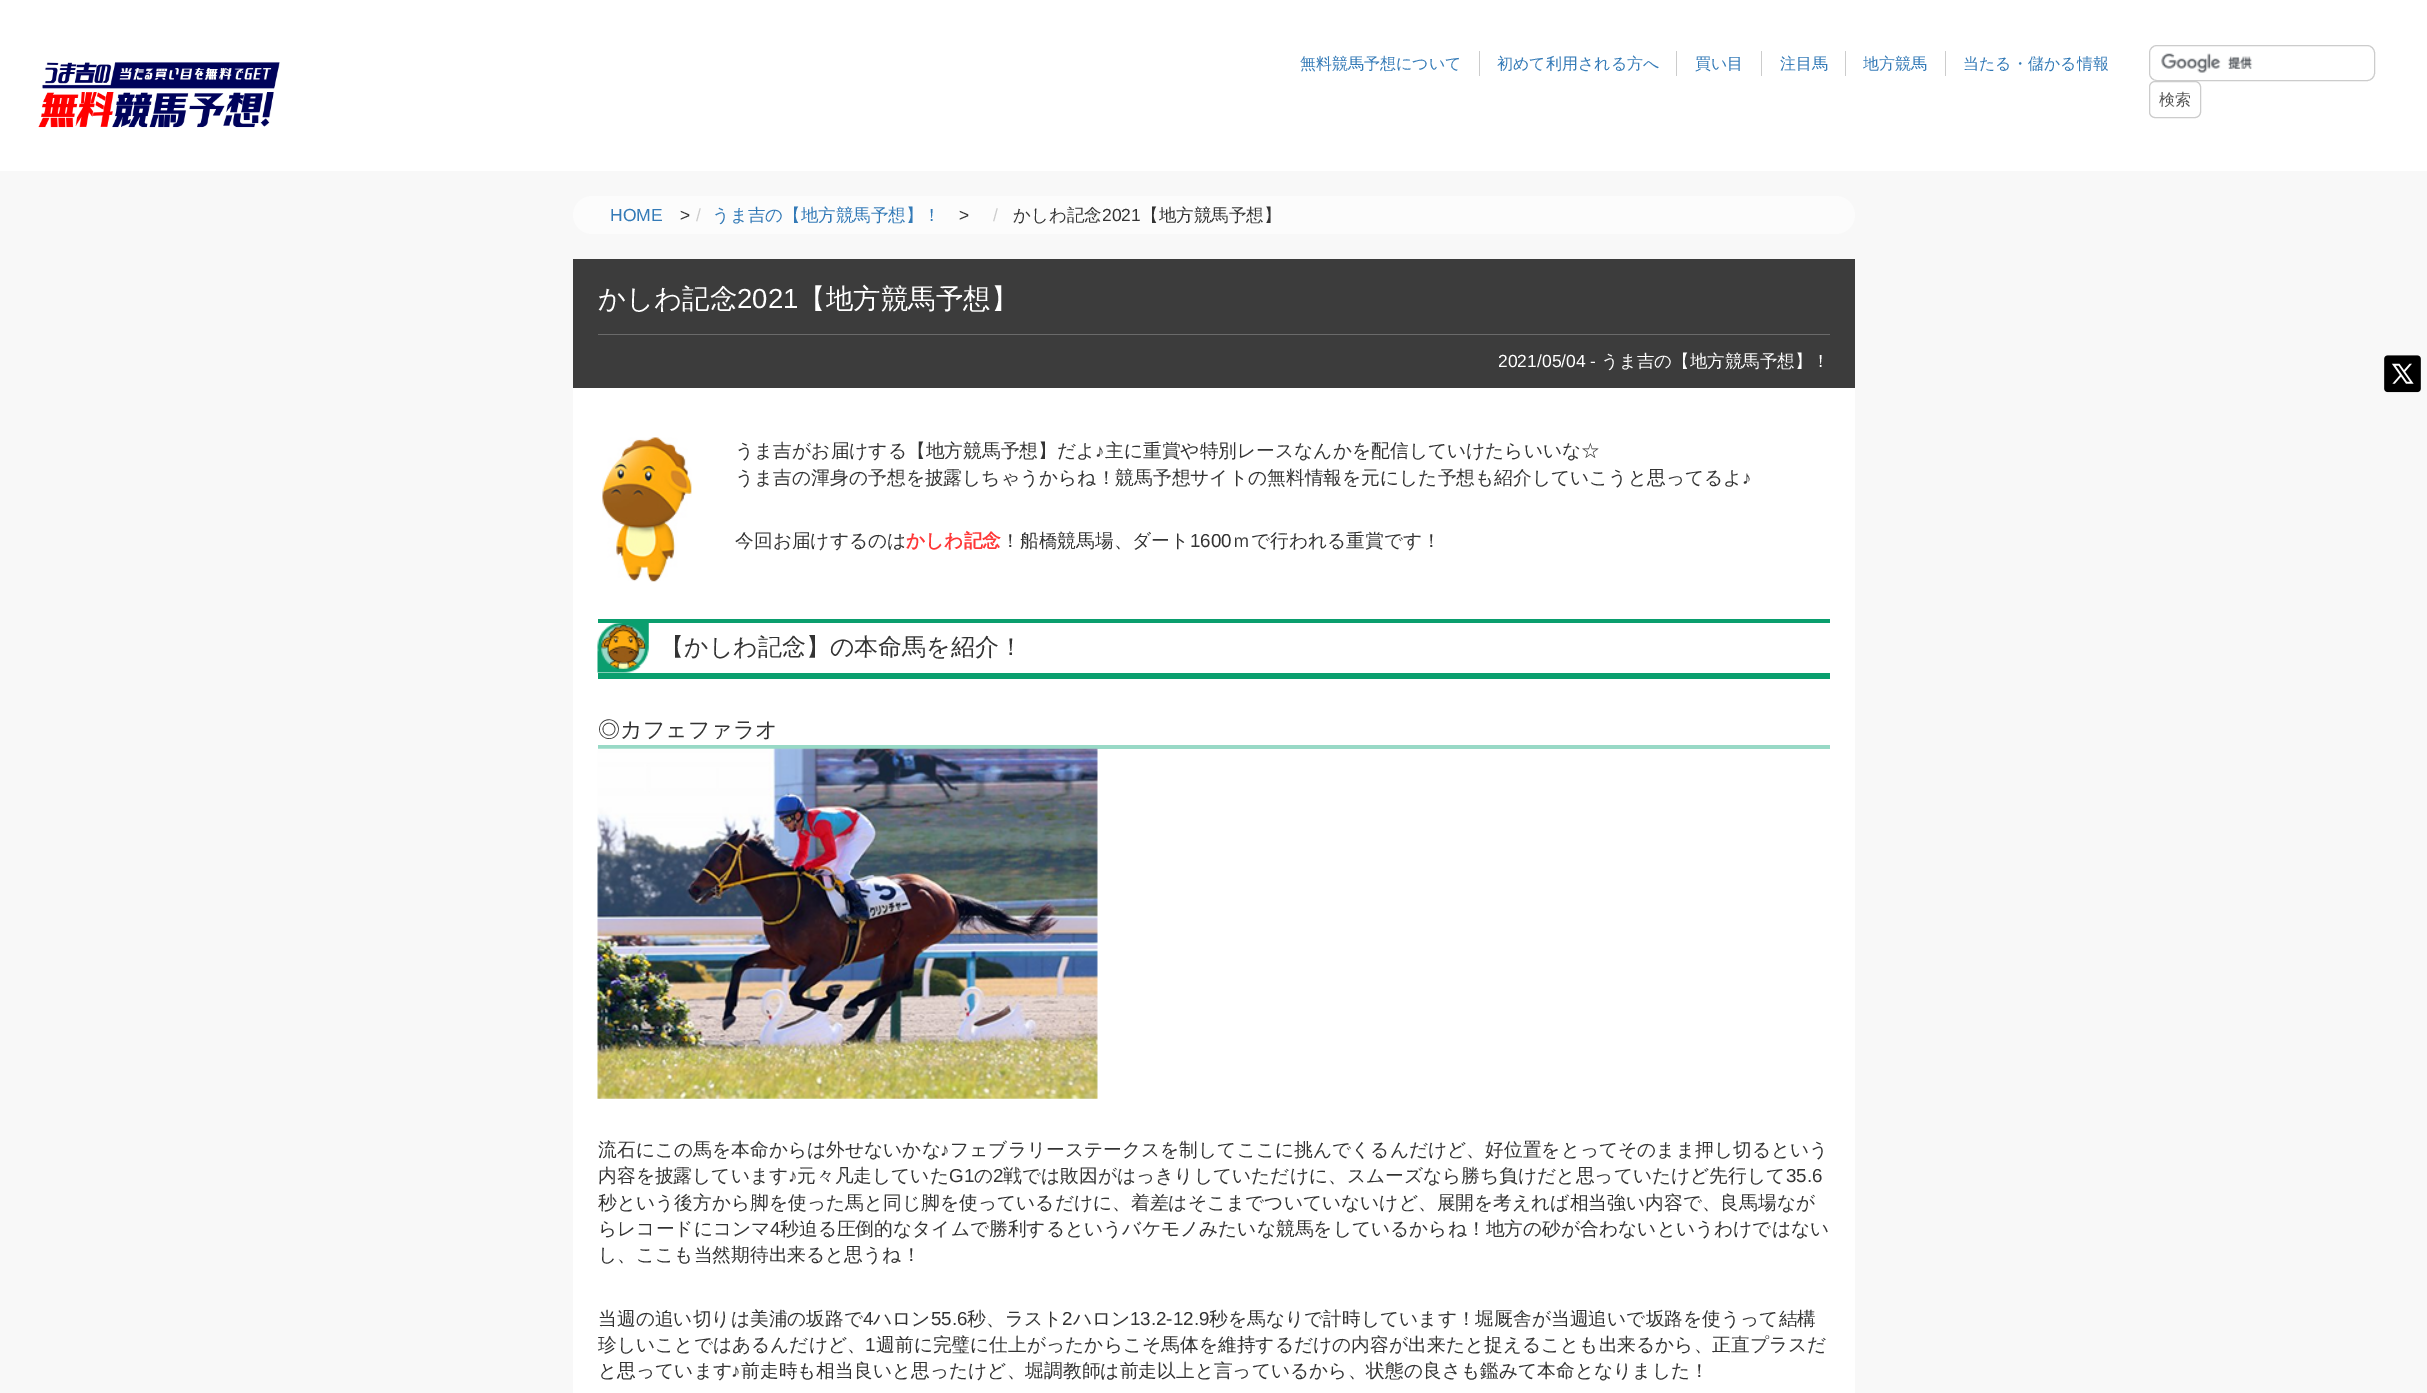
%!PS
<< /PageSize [2427 1393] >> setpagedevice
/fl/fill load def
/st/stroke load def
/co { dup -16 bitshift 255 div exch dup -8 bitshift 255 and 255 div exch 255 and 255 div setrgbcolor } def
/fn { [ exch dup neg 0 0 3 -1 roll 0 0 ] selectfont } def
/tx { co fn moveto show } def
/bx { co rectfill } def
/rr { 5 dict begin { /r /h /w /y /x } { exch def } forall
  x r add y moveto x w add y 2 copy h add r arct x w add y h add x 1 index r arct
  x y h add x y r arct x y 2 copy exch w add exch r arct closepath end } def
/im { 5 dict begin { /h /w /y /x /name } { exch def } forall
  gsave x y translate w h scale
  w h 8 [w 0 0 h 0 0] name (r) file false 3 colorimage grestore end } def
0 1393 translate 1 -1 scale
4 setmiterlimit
0 0 2427 1393 16#F8F8F8 bx
0 0 2427 171 16#FFFFFF bx
(media/1.raw) 38 62 242 66 im
1479 51 1 25 16#CCCCCC bx
1676 51 1 25 16#CCCCCC bx
1761 51 1 25 16#CCCCCC bx
1845 51 1 25 16#CCCCCC bx
1945 51 1 25 16#CCCCCC bx
(media/2.raw) 2161 53 92 20 im
2149.5 45.5 225 35 7.5 rr st
2149.5 81.5 51 36 5.5 rr st
(media/3.raw) 2384 355 37 38 im
16#FCFCFC co
573 196 1282 38 19 rr fl
573 259 1282 129 16#3C3C3C bx
598 334 1232 1 16#6A6A6A bx
573 388 1282 1005 16#FFFFFF bx
(media/4.raw) 602 437 90 145 im
(media/5.raw) 597 622 52 51 im
598 619 1232 4 16#0A9F6E bx
598 673 1232 6 16#0A9F6E bx
598 745 1232 4 16#98D9C6 bx
(media/6.raw) 597 748 501 351 im
(無料競馬予想について) 1300 69 /WenQuanYiZenHei-Medium 16 16#337AB7 tx
(初めて利用される方へ) 1497 69 /WenQuanYiZenHei-Medium 16 16#337AB7 tx
(買い目) 1695 69 /WenQuanYiZenHei-Medium 16 16#337AB7 tx
(注目馬) 1780 69 /WenQuanYiZenHei-Medium 16 16#337AB7 tx
(地方競馬) 1863 69 /WenQuanYiZenHei-Medium 16 16#337AB7 tx
(当たる・儲かる情報) 1963 69 /WenQuanYiZenHei-Medium 16 16#337AB7 tx
(検索) 2159 105 /WenQuanYiZenHei-Medium 16 16#555555 tx
(HOME) 610 221 /LiberationSans-Regular 17.5 16#337AB7 tx
(>) 680 221 /LiberationSans-Regular 17.5 16#333333 tx
(/) 696 221 /LiberationSans-Regular 17.5 16#CCCCCC tx
(うま吉の【地方競馬予想】！) 712 221 /WenQuanYiZenHei-Medium 17.5 16#337AB7 tx
(>) 959 221 /LiberationSans-Regular 17.5 16#333333 tx
(/) 993 221 /LiberationSans-Regular 17.5 16#CCCCCC tx
(かしわ記念) 1013 221 /WenQuanYiZenHei-Medium 17.5 16#333333 tx
(2021) 1102 221 /LiberationSans-Regular 17.5 16#333333 tx
(【地方競馬予想】) 1141 221 /WenQuanYiZenHei-Medium 17.5 16#333333 tx
(かしわ記念) 598 308 /WenQuanYiZenHei-Medium 27.5 16#FFFFFF tx
(2021) 737 308 /LiberationSans-Regular 27.5 16#FFFFFF tx
(【地方競馬予想】) 798 308 /WenQuanYiZenHei-Medium 27.5 16#FFFFFF tx
(2021/05/04 -) 1498 367 /LiberationSans-Regular 17.5 16#FFFFFF tx
(うま吉の【地方競馬予想】！) 1601 367 /WenQuanYiZenHei-Medium 17.5 16#FFFFFF tx
(うま吉がお届けする【地方競馬予想】だよ) 735 457 /WenQuanYiZenHei-Medium 18.75 16#333333 tx
(♪) 1095 457 /LiberationSans-Regular 18.75 16#333333 tx
(主に重賞や特別レースなんかを配信していけたらいいな☆) 1105 457 /WenQuanYiZenHei-Medium 18.75 16#333333 tx
(うま吉の渾身の予想を披露しちゃうからね！競馬予想サイトの無料情報を元にした予想も紹介していこうと思ってるよ) 735 484 /WenQuanYiZenHei-Medium 18.75 16#333333 tx
(♪) 1742 484 /LiberationSans-Regular 18.75 16#333333 tx
(今回お届けするのは) 735 547 /WenQuanYiZenHei-Medium 18.75 16#333333 tx
(かしわ記念) 906 547 /WenQuanYiZenHei-Bold 18.75 16#FF3737 tx
(！船橋競馬場、ダート) 1001 547 /WenQuanYiZenHei-Medium 18.75 16#333333 tx
(1600) 1190 547 /LiberationSans-Regular 18.75 16#333333 tx
(ｍで行われる重賞です！) 1232 547 /WenQuanYiZenHei-Medium 18.75 16#333333 tx
(【かしわ記念】の本命馬を紹介！) 660 655 /WenQuanYiZenHei-Medium 24 16#333333 tx
(◎カフェファラオ) 598 737 /WenQuanYiZenHei-Medium 22 16#333333 tx
(流石にこの馬を本命からは外せないかな) 598 1156 /WenQuanYiZenHei-Medium 18.75 16#333333 tx
(♪) 940 1156 /LiberationSans-Regular 18.75 16#333333 tx
(フェブラリーステークスを制してここに挑んでくるんだけど、好位置をとってそのまま押し切るという) 950 1156 /WenQuanYiZenHei-Medium 18.75 16#333333 tx
(内容を披露しています) 598 1182 /WenQuanYiZenHei-Medium 18.75 16#333333 tx
(♪) 788 1182 /LiberationSans-Regular 18.75 16#333333 tx
(元々凡走していた) 797 1182 /WenQuanYiZenHei-Medium 18.75 16#333333 tx
(G1) 949 1182 /LiberationSans-Regular 18.75 16#333333 tx
(の) 974 1182 /WenQuanYiZenHei-Medium 18.75 16#333333 tx
(2) 993 1182 /LiberationSans-Regular 18.75 16#333333 tx
(戦では敗因がはっきりしていただけに、スムーズなら勝ち負けだと思っていたけど先行して) 1003 1182 /WenQuanYiZenHei-Medium 18.75 16#333333 tx
(35.6) 1786 1182 /LiberationSans-Regular 18.75 16#333333 tx
(秒という後方から脚を使った馬と同じ脚を使っているだけに、着差はそこまでついていないけど、展開を考えれば相当強い内容で、良馬場なが) 598 1209 /WenQuanYiZenHei-Medium 18.75 16#333333 tx
(らレコードにコンマ) 598 1235 /WenQuanYiZenHei-Medium 18.75 16#333333 tx
(4) 770 1235 /LiberationSans-Regular 18.75 16#333333 tx
(秒迫る圧倒的なタイムで勝利するというバケモノみたいな競馬をしているからね！地方の砂が合わないというわけではない) 780 1235 /WenQuanYiZenHei-Medium 18.75 16#333333 tx
(し、ここも当然期待出来ると思うね！) 598 1261 /WenQuanYiZenHei-Medium 18.75 16#333333 tx
(当週の追い切りは美浦の坂路で) 598 1325 /WenQuanYiZenHei-Medium 18.75 16#333333 tx
(4) 863 1325 /LiberationSans-Regular 18.75 16#333333 tx
(ハロン) 873 1325 /WenQuanYiZenHei-Medium 18.75 16#333333 tx
(55.6) 931 1325 /LiberationSans-Regular 18.75 16#333333 tx
(秒、ラスト) 967 1325 /WenQuanYiZenHei-Medium 18.75 16#333333 tx
(2) 1062 1325 /LiberationSans-Regular 18.75 16#333333 tx
(ハロン) 1073 1325 /WenQuanYiZenHei-Medium 18.75 16#333333 tx
(13.2-12.9) 1130 1325 /LiberationSans-Regular 18.75 16#333333 tx
(秒を馬なりで計時しています！堀厩舎が当週追いで坂路を使うって結構) 1209 1325 /WenQuanYiZenHei-Medium 18.75 16#333333 tx
(珍しいことではあるんだけど、) 598 1351 /WenQuanYiZenHei-Medium 18.75 16#333333 tx
(1) 865 1351 /LiberationSans-Regular 18.75 16#333333 tx
(週前に完璧に仕上がったからこそ馬体を維持するだけの内容が出来たと捉えることも出来るから、正直プラスだ) 876 1351 /WenQuanYiZenHei-Medium 18.75 16#333333 tx
(と思っています) 598 1377 /WenQuanYiZenHei-Medium 18.75 16#333333 tx
(♪) 731 1377 /LiberationSans-Regular 18.75 16#333333 tx
(前走時も相当良いと思ったけど、堀調教師は前走以上と言っているから、状態の良さも鑑みて本命となりました！) 741 1377 /WenQuanYiZenHei-Medium 18.75 16#333333 tx
showpage
